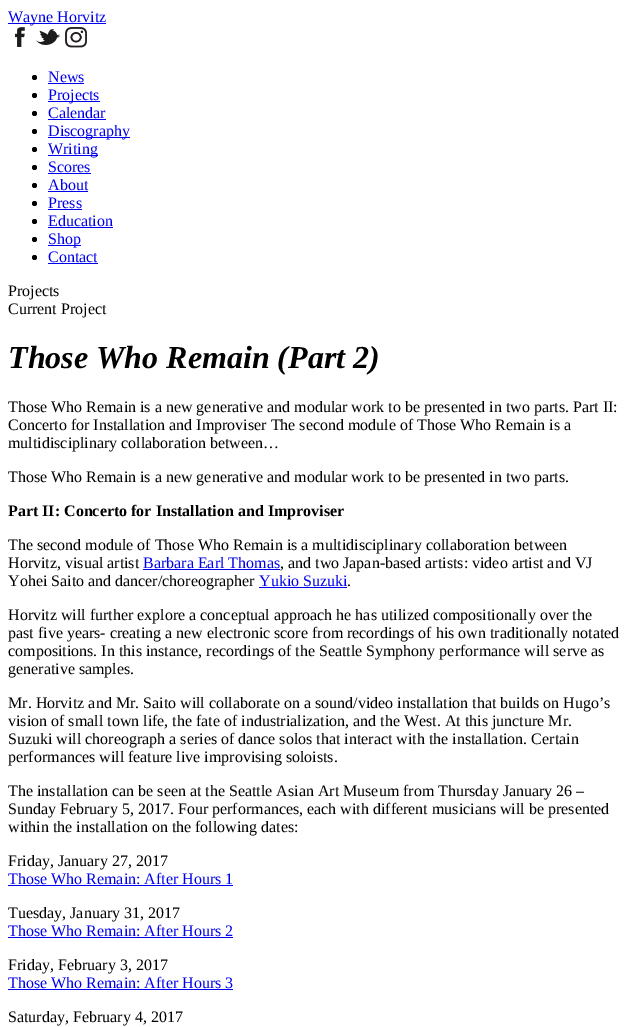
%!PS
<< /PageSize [628 1027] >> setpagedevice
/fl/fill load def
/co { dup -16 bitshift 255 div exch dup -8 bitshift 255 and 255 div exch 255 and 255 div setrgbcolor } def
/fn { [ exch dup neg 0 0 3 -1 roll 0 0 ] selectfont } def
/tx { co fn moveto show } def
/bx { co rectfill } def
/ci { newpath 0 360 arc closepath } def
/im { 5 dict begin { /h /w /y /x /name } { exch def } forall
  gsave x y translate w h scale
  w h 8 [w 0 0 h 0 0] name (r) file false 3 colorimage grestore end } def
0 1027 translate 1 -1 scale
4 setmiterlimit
0 0 628 1027 16#FFFFFF bx
8 23 98 1 16#0000EE bx
(media/1.raw) 15 27 10 20 im
(media/2.raw) 36 29 24 16 im
(media/3.raw) 65 27 22 21 im
16#000000 co
34.5 77.5 2.5 ci fl
48 83 36 1 16#0000EE bx
16#000000 co
34.5 95.5 2.5 ci fl
48 101 52 1 16#0000EE bx
16#000000 co
34.5 113.5 2.5 ci fl
48 119 58 1 16#0000EE bx
16#000000 co
34.5 131.5 2.5 ci fl
48 137 82 1 16#0000EE bx
16#000000 co
34.5 149.5 2.5 ci fl
48 155 50 1 16#0000EE bx
16#000000 co
34.5 167.5 2.5 ci fl
48 173 43 1 16#0000EE bx
16#000000 co
34.5 185.5 2.5 ci fl
48 191 40 1 16#0000EE bx
16#000000 co
34.5 203.5 2.5 ci fl
48 209 34 1 16#0000EE bx
16#000000 co
34.5 221.5 2.5 ci fl
48 227 65 1 16#0000EE bx
16#000000 co
34.5 239.5 2.5 ci fl
48 245 33 1 16#0000EE bx
16#000000 co
34.5 257.5 2.5 ci fl
48 263 50 1 16#0000EE bx
143 569 137 1 16#0000EE bx
259 587 88 1 16#0000EE bx
8 885 225 1 16#0000EE bx
8 937 225 1 16#0000EE bx
8 989 225 1 16#0000EE bx
(Wayne Horvitz) 8 22 /LiberationSerif-Regular 16 16#0000EE tx
(News) 48 82 /LiberationSerif-Regular 16 16#0000EE tx
(Projects) 48 100 /LiberationSerif-Regular 16 16#0000EE tx
(Calendar) 48 118 /LiberationSerif-Regular 16 16#0000EE tx
(Discography) 48 136 /LiberationSerif-Regular 16 16#0000EE tx
(Writing) 48 154 /LiberationSerif-Regular 16 16#0000EE tx
(Scores) 48 172 /LiberationSerif-Regular 16 16#0000EE tx
(About) 48 190 /LiberationSerif-Regular 16 16#0000EE tx
(Press) 48 208 /LiberationSerif-Regular 16 16#0000EE tx
(Education) 48 226 /LiberationSerif-Regular 16 16#0000EE tx
(Shop) 48 244 /LiberationSerif-Regular 16 16#0000EE tx
(Contact) 48 262 /LiberationSerif-Regular 16 16#0000EE tx
(Projects) 8 296 /LiberationSerif-Regular 16 16#000000 tx
(Current Project) 8 314 /LiberationSerif-Regular 16 16#000000 tx
(Those Who Remain \(Part 2\)) 8 368 /LiberationSerif-BoldItalic 32 16#000000 tx
(Those Who Remain is a new generative and modular work to be presented in two parts. Part II:) 8 412 /LiberationSerif-Regular 16 16#000000 tx
(Concerto for Installation and Improviser The second module of Those Who Remain is a) 8 430 /LiberationSerif-Regular 16 16#000000 tx
(multidisciplinary collaboration between…) 8 448 /LiberationSerif-Regular 16 16#000000 tx
(Those Who Remain is a new generative and modular work to be presented in two parts.) 8 482 /LiberationSerif-Regular 16 16#000000 tx
(Part II: Concerto for Installation and Improviser) 8 516 /LiberationSerif-Bold 16 16#000000 tx
(The second module of Those Who Remain is a multidisciplinary collaboration between) 8 550 /LiberationSerif-Regular 16 16#000000 tx
(Horvitz, visual artist) 8 568 /LiberationSerif-Regular 16 16#000000 tx
(Barbara Earl Thomas) 143 568 /LiberationSerif-Regular 16 16#0000EE tx
(, and two Japan-based artists: video artist and VJ) 280 568 /LiberationSerif-Regular 16 16#000000 tx
(Yohei Saito and dancer/choreographer) 8 586 /LiberationSerif-Regular 16 16#000000 tx
(Yukio Suzuki) 259 586 /LiberationSerif-Regular 16 16#0000EE tx
(.) 347 586 /LiberationSerif-Regular 16 16#000000 tx
(Horvitz will further explore a conceptual approach he has utilized compositionally over the) 8 620 /LiberationSerif-Regular 16 16#000000 tx
(past five years- creating a new electronic score from recordings of his own traditionally notated) 8 638 /LiberationSerif-Regular 16 16#000000 tx
(compositions. In this instance, recordings of the Seattle Symphony performance will serve as) 8 656 /LiberationSerif-Regular 16 16#000000 tx
(generative samples.) 8 674 /LiberationSerif-Regular 16 16#000000 tx
(Mr. Horvitz and Mr. Saito will collaborate on a sound/video installation that builds on Hugo’s) 8 708 /LiberationSerif-Regular 16 16#000000 tx
(vision of small town life, the fate of industrialization, and the West. At this juncture Mr.) 8 726 /LiberationSerif-Regular 16 16#000000 tx
(Suzuki will choreograph a series of dance solos that interact with the installation. Certain) 8 744 /LiberationSerif-Regular 16 16#000000 tx
(performances will feature live improvising soloists.) 8 762 /LiberationSerif-Regular 16 16#000000 tx
(The installation can be seen at the Seattle Asian Art Museum from Thursday January 26 –) 8 796 /LiberationSerif-Regular 16 16#000000 tx
(Sunday February 5, 2017. Four performances, each with different musicians will be presented) 8 814 /LiberationSerif-Regular 16 16#000000 tx
(within the installation on the following dates:) 8 832 /LiberationSerif-Regular 16 16#000000 tx
(Friday, January 27, 2017) 8 866 /LiberationSerif-Regular 16 16#000000 tx
(Those Who Remain: After Hours 1) 8 884 /LiberationSerif-Regular 16 16#0000EE tx
(Tuesday, January 31, 2017) 8 918 /LiberationSerif-Regular 16 16#000000 tx
(Those Who Remain: After Hours 2) 8 936 /LiberationSerif-Regular 16 16#0000EE tx
(Friday, February 3, 2017) 8 970 /LiberationSerif-Regular 16 16#000000 tx
(Those Who Remain: After Hours 3) 8 988 /LiberationSerif-Regular 16 16#0000EE tx
(Saturday, February 4, 2017) 8 1022 /LiberationSerif-Regular 16 16#000000 tx
showpage
